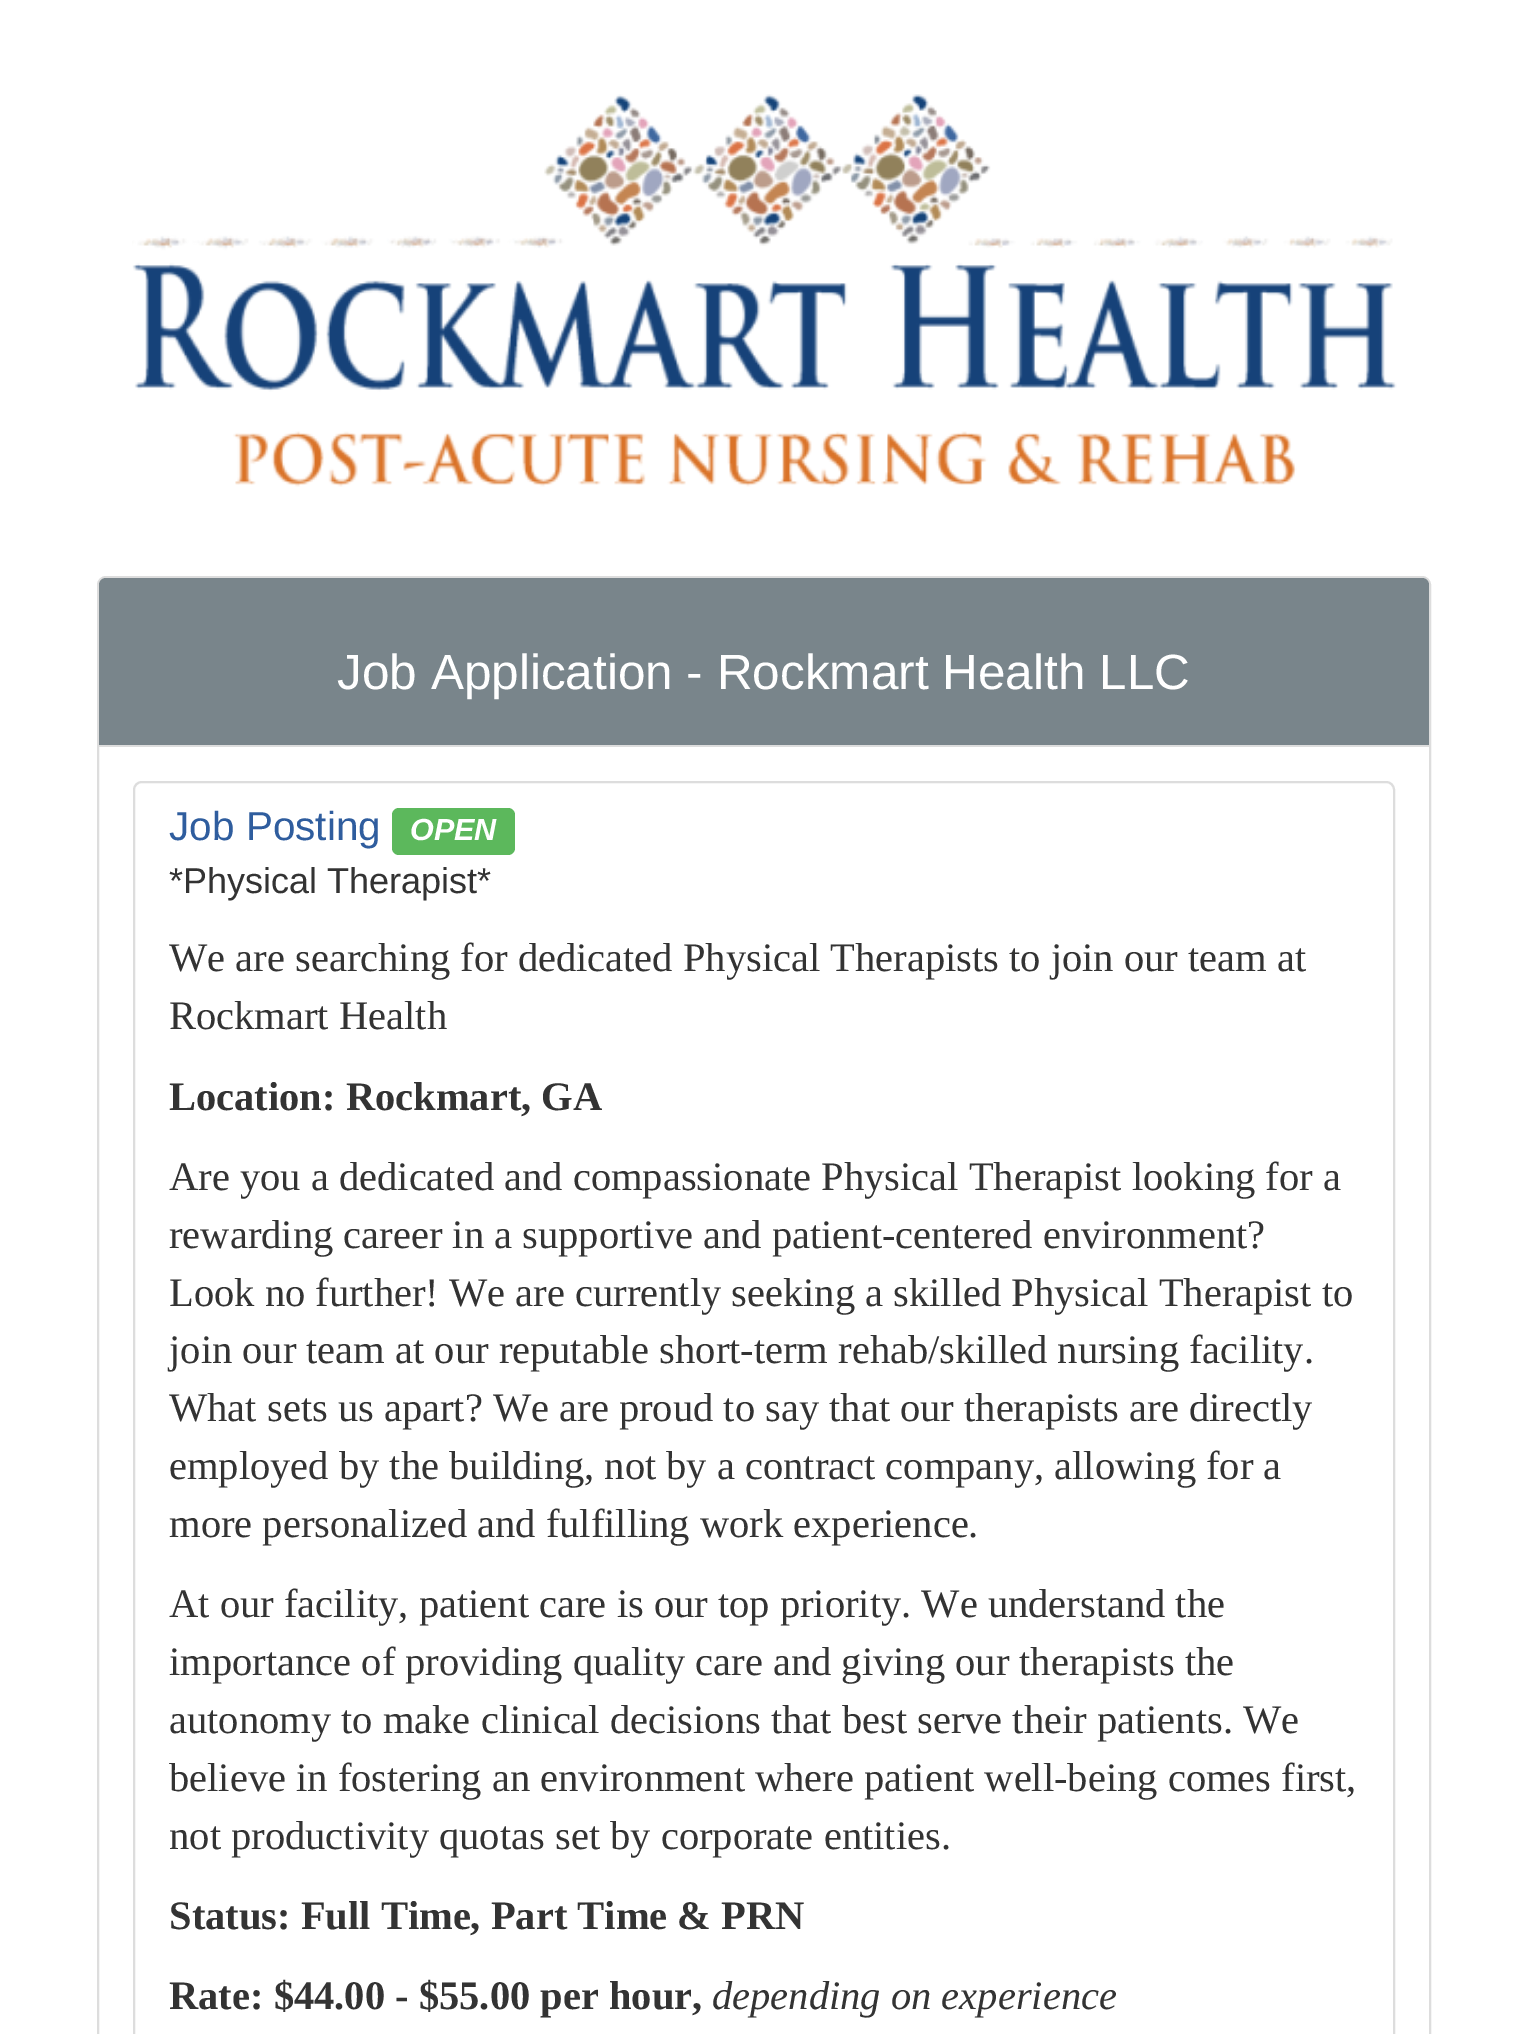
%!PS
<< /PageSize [1527 2034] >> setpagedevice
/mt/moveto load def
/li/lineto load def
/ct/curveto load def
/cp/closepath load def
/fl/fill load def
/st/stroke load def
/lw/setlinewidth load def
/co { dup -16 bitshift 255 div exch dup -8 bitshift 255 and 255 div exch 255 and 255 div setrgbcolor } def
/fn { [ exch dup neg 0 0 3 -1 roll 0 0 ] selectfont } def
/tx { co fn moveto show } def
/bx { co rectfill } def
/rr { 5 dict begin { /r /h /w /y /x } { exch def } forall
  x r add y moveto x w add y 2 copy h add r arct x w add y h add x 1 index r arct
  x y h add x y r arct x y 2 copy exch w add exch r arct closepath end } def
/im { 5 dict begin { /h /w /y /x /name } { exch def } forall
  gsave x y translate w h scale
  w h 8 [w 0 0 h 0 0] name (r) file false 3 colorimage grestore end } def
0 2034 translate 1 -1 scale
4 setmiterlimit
0 0 1527 2034 16#FFFFFF bx
(media/1.raw) 132 94 1265 393 im
16#DDDDDD co
2 lw
98 577 1332 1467 8 rr st
16#79858B co
106 578 mt 1422 578 li 1426 578 1429 581 1429 585 ct 1429 747 li 99 747 li 99 585 li 99 581 102 578 106 578 ct cp fl
99 745 1330 2 16#DDDDDD bx
142 782 mt 1386 782 li 1390.5 782 1394 785.5 1394 790 ct 1394 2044 li 134 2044 li 134 790 li 134 785.5 137.5 782 142 782 ct cp st
16#5CB85C co
392 808 123 47 7 rr fl
(Job Application - Rockmart Health LLC) 337 689 /LiberationSans-Regular 49.5 16#FFFFFF tx
(Job Posting) 169 840 /LiberationSans-Regular 40.5 16#2F5D9E tx
(OPEN) 410 840 /LiberationSans-BoldItalic 30.5 16#FFFFFF tx
(*Physical Therapist*) 169 893 /LiberationSans-Regular 36 16#333333 tx
(We are searching for dedicated Physical Therapists to join our team at) 169 971 /LiberationSerif-Regular 40.5 16#333333 tx
(Rockmart Health) 169 1029 /LiberationSerif-Regular 40.5 16#333333 tx
(Location: Rockmart, GA) 169 1110 /LiberationSerif-Bold 40.5 16#333333 tx
(Are you a dedicated and compassionate Physical Therapist looking for a) 169 1190 /LiberationSerif-Regular 40.5 16#333333 tx
(rewarding career in a supportive and patient-centered environment?) 169 1248 /LiberationSerif-Regular 40.5 16#333333 tx
(Look no further! We are currently seeking a skilled Physical Therapist to) 169 1306 /LiberationSerif-Regular 40.5 16#333333 tx
(join our team at our reputable short-term rehab/skilled nursing facility.) 169 1363 /LiberationSerif-Regular 40.5 16#333333 tx
(What sets us apart? We are proud to say that our therapists are directly) 169 1421 /LiberationSerif-Regular 40.5 16#333333 tx
(employed by the building, not by a contract company, allowing for a) 169 1479 /LiberationSerif-Regular 40.5 16#333333 tx
(more personalized and fulfilling work experience.) 169 1537 /LiberationSerif-Regular 40.5 16#333333 tx
(At our facility, patient care is our top priority. We understand the) 169 1617 /LiberationSerif-Regular 40.5 16#333333 tx
(importance of providing quality care and giving our therapists the) 169 1675 /LiberationSerif-Regular 40.5 16#333333 tx
(autonomy to make clinical decisions that best serve their patients. We) 169 1733 /LiberationSerif-Regular 40.5 16#333333 tx
(believe in fostering an environment where patient well-being comes first,) 169 1791 /LiberationSerif-Regular 40.5 16#333333 tx
(not productivity quotas set by corporate entities.) 169 1849 /LiberationSerif-Regular 40.5 16#333333 tx
(Status: Full Time, Part Time & PRN) 169 1929 /LiberationSerif-Bold 40.5 16#333333 tx
(Rate: $44.00 - $55.00 per hour,) 169 2009 /LiberationSerif-Bold 40.5 16#333333 tx
(depending on experience) 712 2009 /LiberationSerif-Italic 40.5 16#333333 tx
showpage
